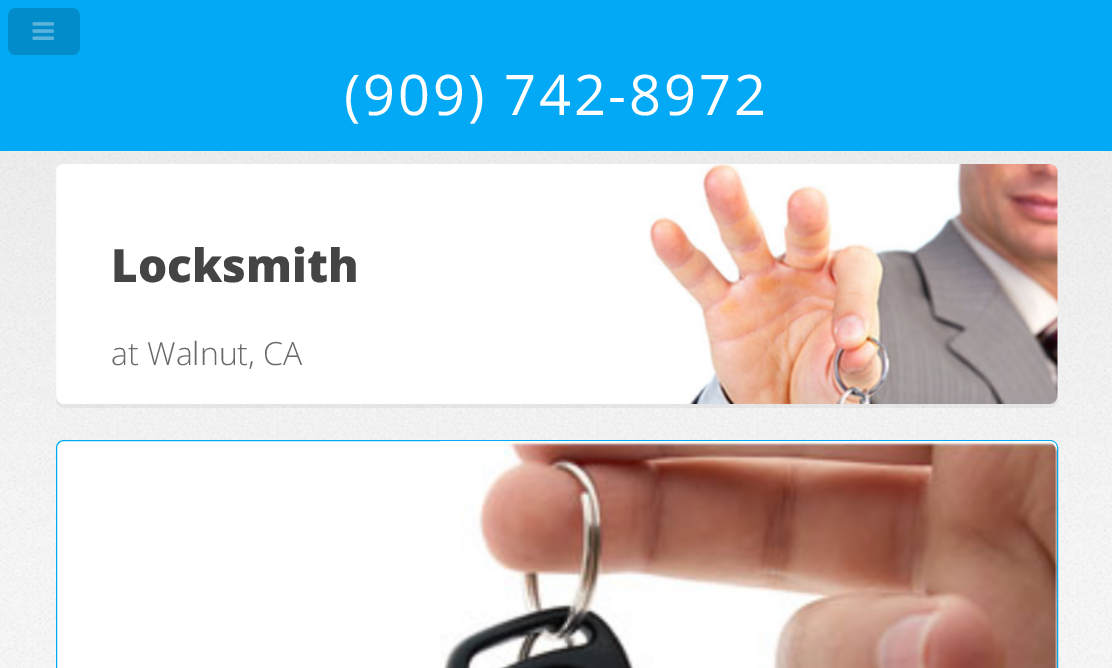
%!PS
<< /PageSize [1112 668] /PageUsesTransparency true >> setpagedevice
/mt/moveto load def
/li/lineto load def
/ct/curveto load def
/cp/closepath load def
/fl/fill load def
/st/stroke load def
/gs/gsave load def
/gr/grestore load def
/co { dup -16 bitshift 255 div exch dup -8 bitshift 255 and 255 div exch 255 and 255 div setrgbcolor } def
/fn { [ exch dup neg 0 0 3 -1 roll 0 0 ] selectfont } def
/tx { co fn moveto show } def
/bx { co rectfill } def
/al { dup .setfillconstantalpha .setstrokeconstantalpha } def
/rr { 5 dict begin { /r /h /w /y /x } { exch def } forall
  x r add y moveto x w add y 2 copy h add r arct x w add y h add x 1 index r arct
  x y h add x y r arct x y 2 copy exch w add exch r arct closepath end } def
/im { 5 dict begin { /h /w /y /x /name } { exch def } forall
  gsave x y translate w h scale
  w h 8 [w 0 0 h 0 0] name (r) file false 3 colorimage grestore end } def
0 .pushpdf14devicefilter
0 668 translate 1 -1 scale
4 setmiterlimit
0 0 1112 668 16#F7F7F7 bx
(media/1.raw) 0 151 1112 517 im
0 0 1112 151 16#03A9F4 bx
16#038CCA co
8 8 72 47 8 rr fl
(media/2.raw) 32 22 22 18 im
0.05 al
16#000000 co
56 174 mt 56 400 li 56 404 60 408 64 408 ct 1050 408 li 1054 408 1058 404 1058 400 ct 1058 176 li 1058 173 li 1058 396 li 1058 400 1054 404 1050 404 ct 64 404 li 60 404 56 400 56 396 ct cp fl
1 al
(media/3.raw) 56 164 1002 240 im
16#FFFFFF co
56.5 440.5 1001 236 7.5 rr gs fl gr
16#03A9F4 co
st
(media/4.raw) 440 441 617 227 im
/OpenSans-Regular 56 fn
16#FFFFFF co
344 115 mt 2.75 0 (\(909\) 742-8972) ashow
(Locksmith) 111 282 /OpenSans-ExtraBold 46 16#444444 tx
(at Walnut, CA) 111 365 /OpenSans-Light 32 16#696969 tx
.poppdf14devicefilter showpage
